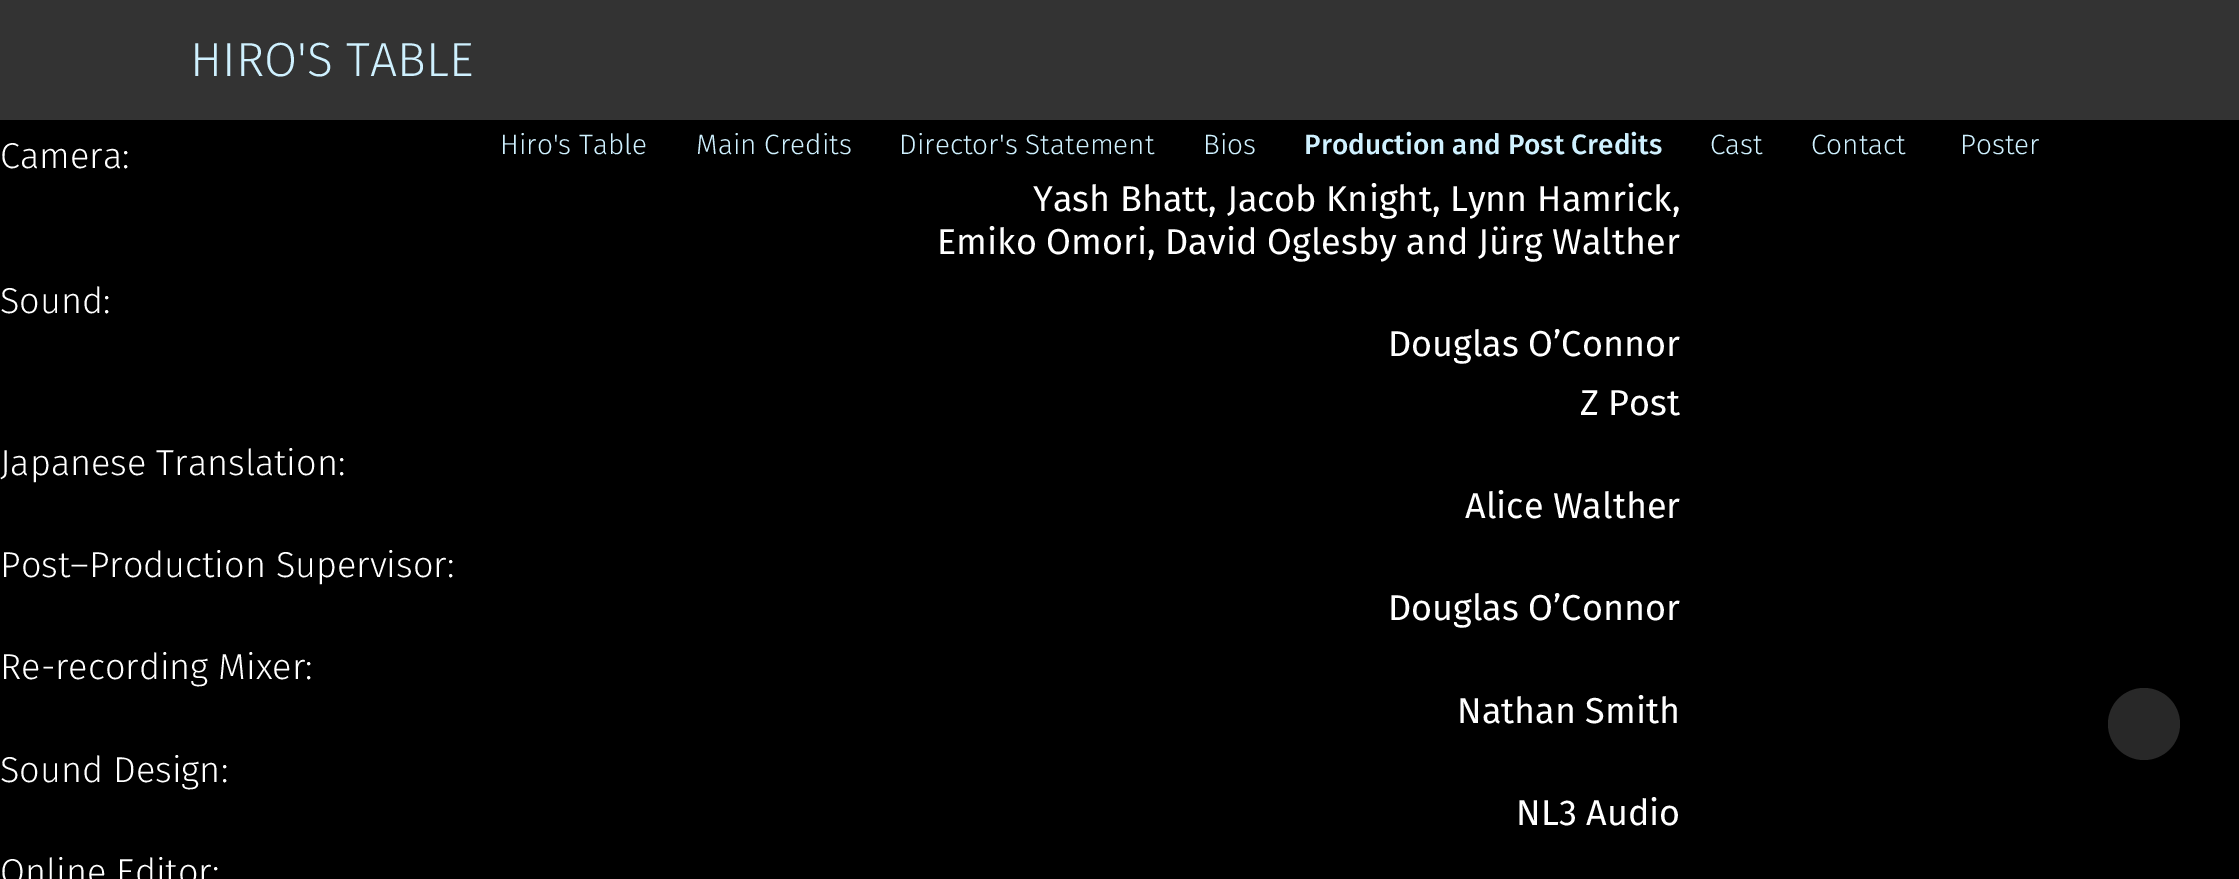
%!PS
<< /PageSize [2239 879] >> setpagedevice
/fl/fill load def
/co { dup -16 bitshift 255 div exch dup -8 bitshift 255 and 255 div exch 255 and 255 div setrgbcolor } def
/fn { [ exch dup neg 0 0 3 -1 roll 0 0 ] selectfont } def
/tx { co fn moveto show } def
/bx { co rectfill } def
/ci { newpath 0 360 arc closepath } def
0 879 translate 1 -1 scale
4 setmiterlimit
0 0 2239 879 16#000000 bx
0 0 2239 120 16#333333 bx
16#282828 co
2144 724 36 ci fl
(HIRO'S TABLE) 190 76 /FiraSans-Light 48 16#CFF1FF tx
(Hiro's Table) 500 154 /FiraSans-Light 28 16#CFF1FF tx
(Main Credits) 696 154 /FiraSans-Light 28 16#CFF1FF tx
(Director's Statement) 899 154 /FiraSans-Light 28 16#CFF1FF tx
(Bios) 1203 154 /FiraSans-Light 28 16#CFF1FF tx
(Production and Post Credits) 1304 154 /FiraSans-Medium 28 16#CFF1FF tx
(Cast) 1710 154 /FiraSans-Light 28 16#CFF1FF tx
(Contact) 1811 154 /FiraSans-Light 28 16#CFF1FF tx
(Poster) 1960 154 /FiraSans-Light 28 16#CFF1FF tx
(Camera:) 0 168 /FiraSans-Light 36 16#FFFFFF tx
(Yash Bhatt, Jacob Knight, Lynn Hamrick,) 1033 211 /FiraSans-Regular 36 16#FFFFFF tx
(Emiko Omori, David Oglesby and Jürg Walther) 937 254 /FiraSans-Regular 36 16#FFFFFF tx
(Sound:) 0 313 /FiraSans-Light 36 16#FFFFFF tx
(Douglas O’Connor) 1388 356 /FiraSans-Regular 36 16#FFFFFF tx
(Z Post) 1580 415 /FiraSans-Regular 36 16#FFFFFF tx
(Japanese Translation:) 0 475 /FiraSans-Light 36 16#FFFFFF tx
(Alice Walther) 1465 518 /FiraSans-Regular 36 16#FFFFFF tx
(Post–Production Supervisor:) 0 577 /FiraSans-Light 36 16#FFFFFF tx
(Douglas O’Connor) 1388 620 /FiraSans-Regular 36 16#FFFFFF tx
(Re-recording Mixer:) 0 679 /FiraSans-Light 36 16#FFFFFF tx
(Nathan Smith) 1457 723 /FiraSans-Regular 36 16#FFFFFF tx
(Sound Design:) 0 782 /FiraSans-Light 36 16#FFFFFF tx
(NL3 Audio) 1516 825 /FiraSans-Regular 36 16#FFFFFF tx
(Online Editor:) 0 884 /FiraSans-Light 36 16#FFFFFF tx
showpage
